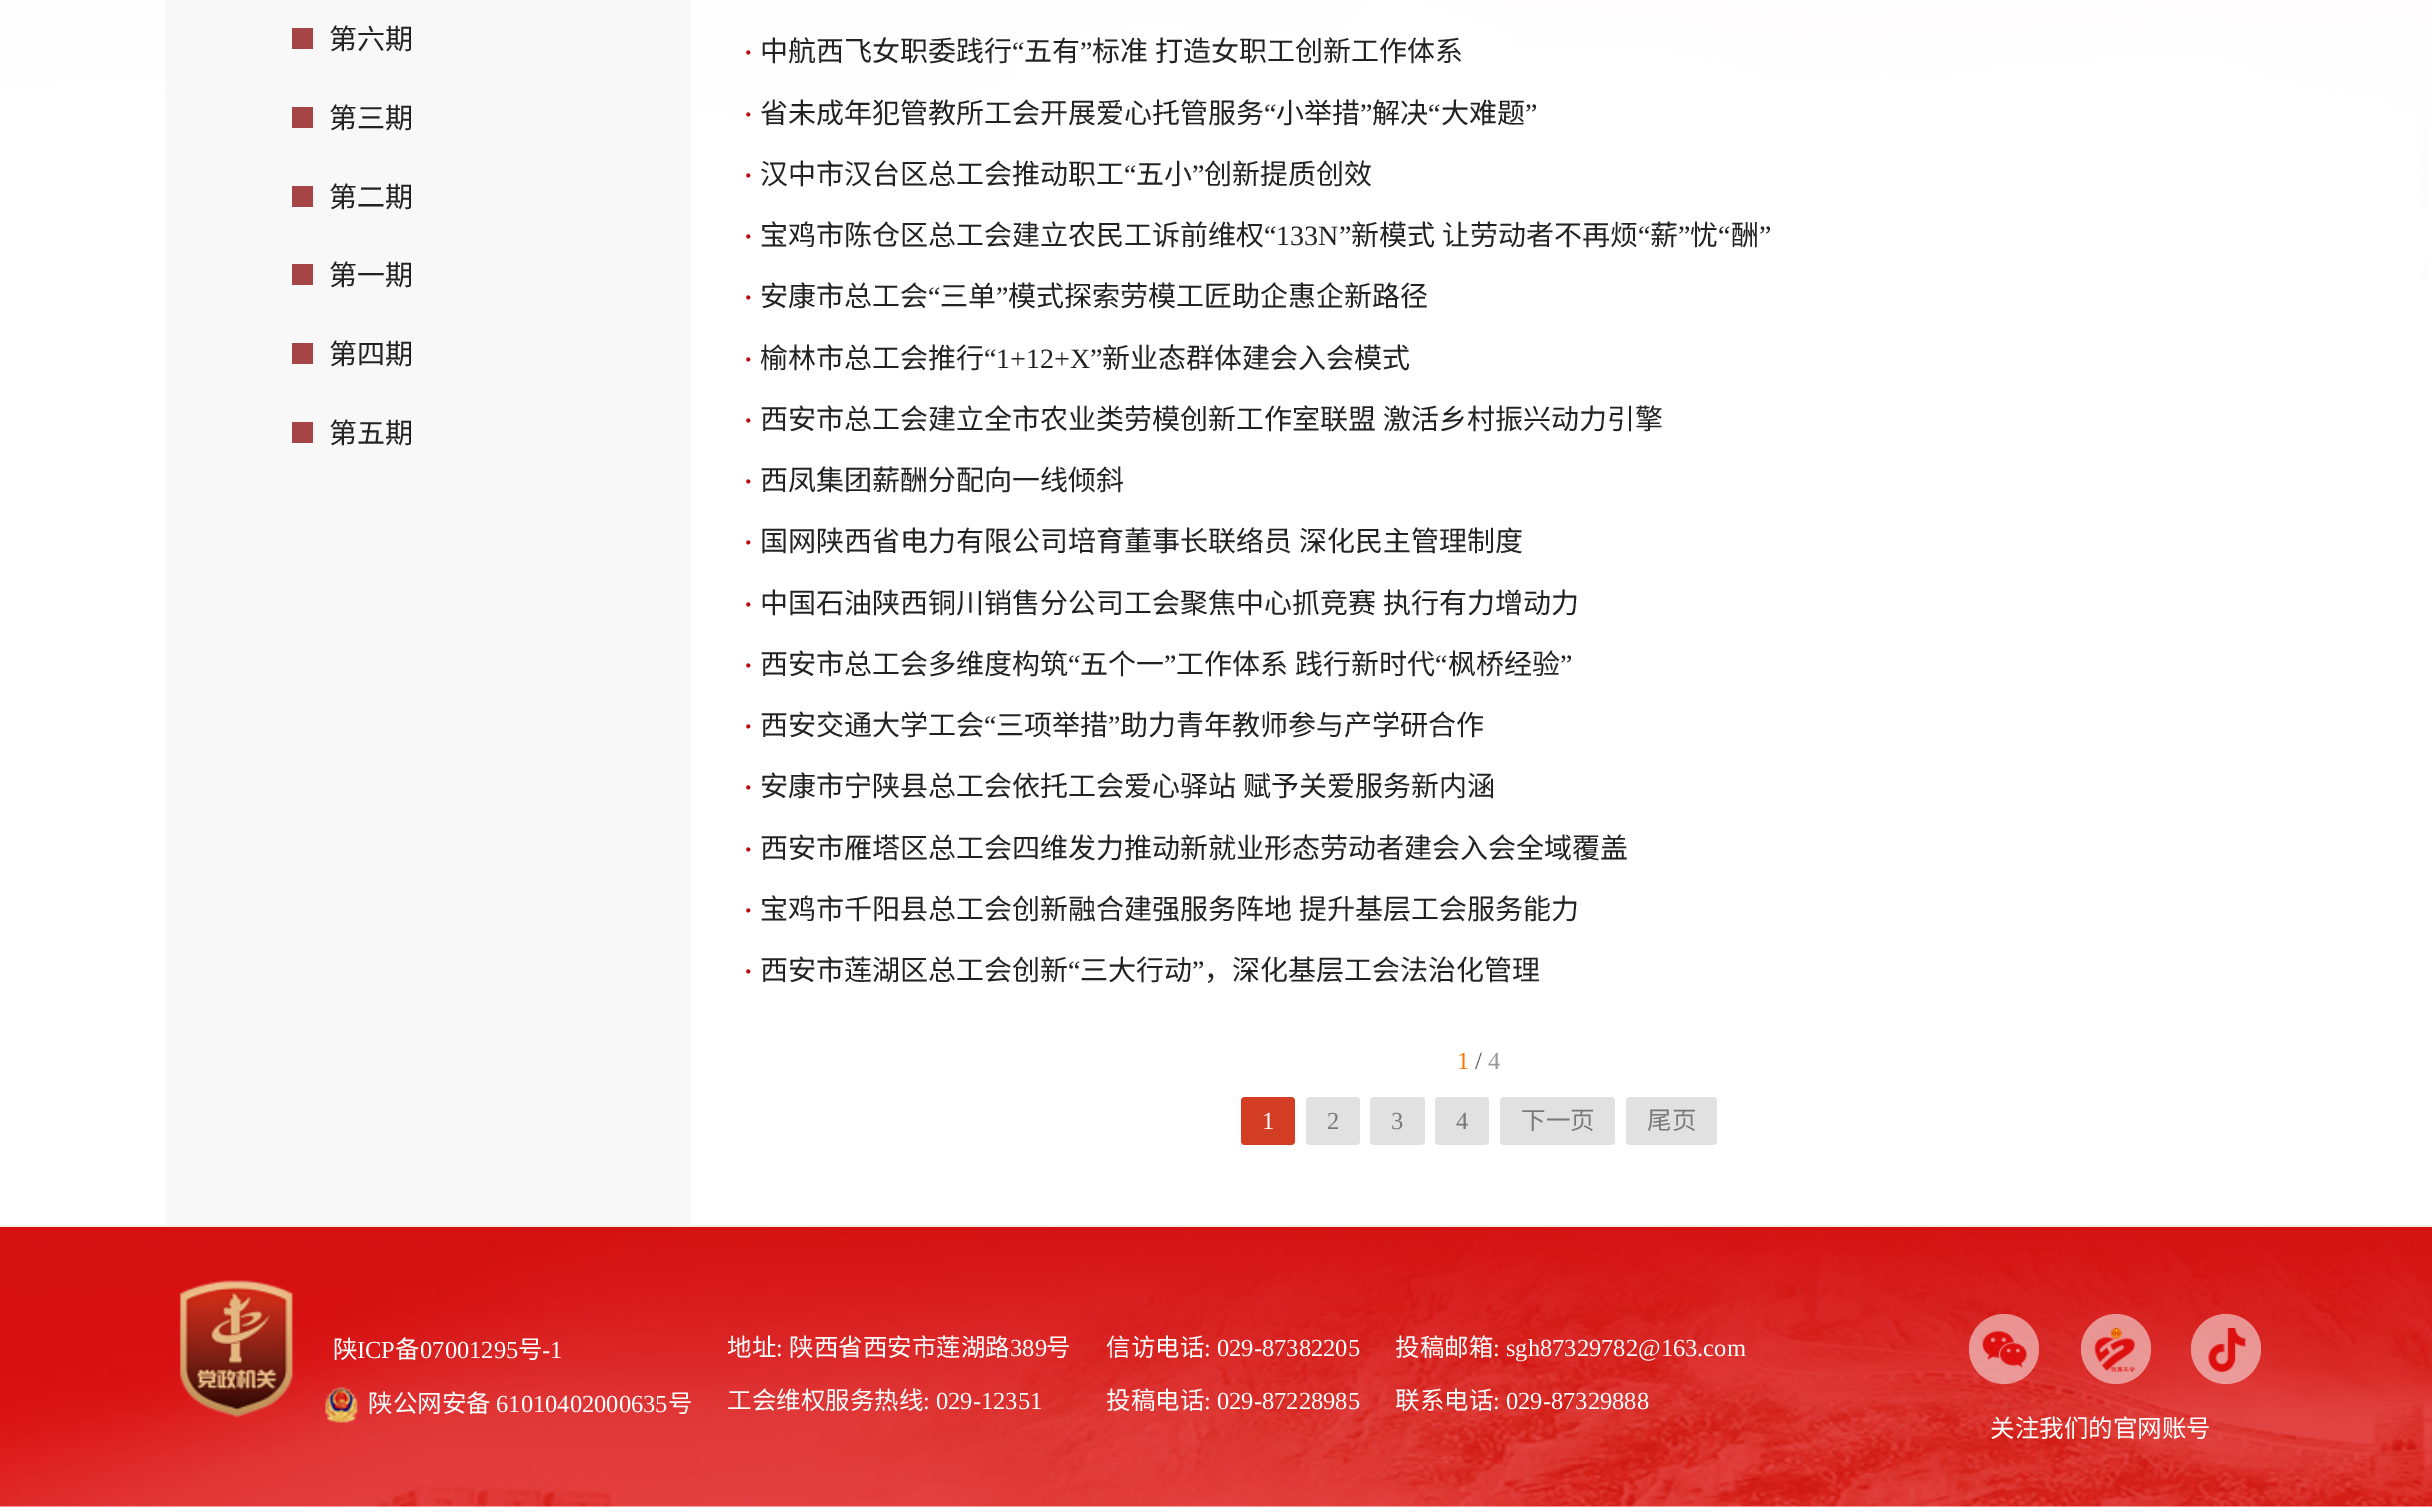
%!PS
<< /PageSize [2432 1507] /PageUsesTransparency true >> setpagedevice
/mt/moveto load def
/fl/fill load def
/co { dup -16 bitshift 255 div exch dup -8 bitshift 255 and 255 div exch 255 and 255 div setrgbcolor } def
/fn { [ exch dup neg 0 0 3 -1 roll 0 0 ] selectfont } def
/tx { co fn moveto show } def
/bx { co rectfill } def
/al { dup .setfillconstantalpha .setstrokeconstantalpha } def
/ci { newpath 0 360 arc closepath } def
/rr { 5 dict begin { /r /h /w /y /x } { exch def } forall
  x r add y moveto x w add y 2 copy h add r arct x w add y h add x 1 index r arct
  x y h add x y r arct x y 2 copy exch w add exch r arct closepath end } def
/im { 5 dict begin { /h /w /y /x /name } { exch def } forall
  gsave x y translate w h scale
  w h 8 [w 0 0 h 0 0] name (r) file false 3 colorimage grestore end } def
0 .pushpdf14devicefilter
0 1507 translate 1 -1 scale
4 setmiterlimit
0 0 2432 1507 16#FFFFFF bx
(media/1.raw) 0 0 2432 335 im
166 0 525 1225 16#F8F8F8 bx
292 28 21 21 16#A54545 bx
292 107 21 21 16#A54545 bx
292 186 21 21 16#A54545 bx
292 264 21 21 16#A54545 bx
292 343 21 21 16#A54545 bx
292 422 21 21 16#A54545 bx
16#D23D24 co
1241 1097 54 48 4 rr fl
16#E1E1E1 co
1306 1097 54 48 4 rr fl
1370 1097 55 48 4 rr fl
1435 1097 54 48 4 rr fl
1500 1097 115 48 4 rr fl
1626 1097 91 48 4 rr fl
(media/2.raw) 0 1227 2432 280 im
0 1225 2432 2 16#EEEEEE bx
(media/3.raw) 179 1280 114 138 im
(media/4.raw) 325 1387 33 36 im
0.6 al
16#F4DFDF co
2004 1349 35 ci fl
1 al
(media/5.raw) 1982 1330 45 38 im
0.6 al
2116 1349 35 ci fl
1 al
(media/6.raw) 2094 1328 42 44 im
0.6 al
2226 1349 35 ci fl
1 al
(media/7.raw) 2208 1328 38 44 im
(第六期) 329 49 /NotoSansCJKSC-Regular 28 16#222222 tx
(第三期) 329 128 /NotoSansCJKSC-Regular 28 16#222222 tx
(第二期) 329 207 /NotoSansCJKSC-Regular 28 16#222222 tx
(第一期) 329 285 /NotoSansCJKSC-Regular 28 16#222222 tx
(第四期) 329 364 /NotoSansCJKSC-Regular 28 16#222222 tx
(第五期) 329 443 /NotoSansCJKSC-Regular 28 16#222222 tx
(中航西飞女职委践行) 760 61 /NotoSansCJKSC-Regular 28 16#222222 tx
(“) 1012 61 /LiberationSerif-Regular 28 16#222222 tx
(五有) 1024 61 /NotoSansCJKSC-Regular 28 16#222222 tx
(”) 1080 61 /LiberationSerif-Regular 28 16#222222 tx
/NotoSansCJKSC-Regular 28 fn
1092 61 mt 1 0 32 (标准 打造女职工创新工作体系) widthshow
(·) 744 61 /LiberationSerif-Bold 26 16#BA0711 tx
(省未成年犯管教所工会开展爱心托管服务) 760 123 /NotoSansCJKSC-Regular 28 16#222222 tx
(“) 1264 123 /LiberationSerif-Regular 28 16#222222 tx
(小举措) 1276 123 /NotoSansCJKSC-Regular 28 16#222222 tx
(”) 1360 123 /LiberationSerif-Regular 28 16#222222 tx
(解决) 1372 123 /NotoSansCJKSC-Regular 28 16#222222 tx
(“) 1428 123 /LiberationSerif-Regular 28 16#222222 tx
(大难题) 1441 123 /NotoSansCJKSC-Regular 28 16#222222 tx
(”) 1525 123 /LiberationSerif-Regular 28 16#222222 tx
(·) 744 123 /LiberationSerif-Bold 26 16#BA0711 tx
(汉中市汉台区总工会推动职工) 760 184 /NotoSansCJKSC-Regular 28 16#222222 tx
(“) 1124 184 /LiberationSerif-Regular 28 16#222222 tx
(五小) 1136 184 /NotoSansCJKSC-Regular 28 16#222222 tx
(”) 1192 184 /LiberationSerif-Regular 28 16#222222 tx
(创新提质创效) 1204 184 /NotoSansCJKSC-Regular 28 16#222222 tx
(·) 744 184 /LiberationSerif-Bold 26 16#BA0711 tx
(宝鸡市陈仓区总工会建立农民工诉前维权) 760 245 /NotoSansCJKSC-Regular 28 16#222222 tx
(“133N”) 1264 245 /LiberationSerif-Regular 28 16#222222 tx
/NotoSansCJKSC-Regular 28 fn
1351 245 mt 1 0 32 (新模式 让劳动者不再烦) widthshow
(“) 1638 245 /LiberationSerif-Regular 28 16#222222 tx
(薪) 1650 245 /NotoSansCJKSC-Regular 28 16#222222 tx
(”) 1678 245 /LiberationSerif-Regular 28 16#222222 tx
(忧) 1690 245 /NotoSansCJKSC-Regular 28 16#222222 tx
(“) 1718 245 /LiberationSerif-Regular 28 16#222222 tx
(酬) 1731 245 /NotoSansCJKSC-Regular 28 16#222222 tx
(”) 1759 245 /LiberationSerif-Regular 28 16#222222 tx
(·) 744 245 /LiberationSerif-Bold 26 16#BA0711 tx
(安康市总工会) 760 306 /NotoSansCJKSC-Regular 28 16#222222 tx
(“) 928 306 /LiberationSerif-Regular 28 16#222222 tx
(三单) 940 306 /NotoSansCJKSC-Regular 28 16#222222 tx
(”) 996 306 /LiberationSerif-Regular 28 16#222222 tx
(模式探索劳模工匠助企惠企新路径) 1008 306 /NotoSansCJKSC-Regular 28 16#222222 tx
(·) 744 306 /LiberationSerif-Bold 26 16#BA0711 tx
(·) 744 368 /LiberationSerif-Bold 26 16#BA0711 tx
(榆林市总工会推行) 760 368 /NotoSansCJKSC-Regular 28 16#222222 tx
(“1+12+X”) 984 368 /LiberationSerif-Regular 28 16#222222 tx
(新业态群体建会入会模式) 1102 368 /NotoSansCJKSC-Regular 28 16#222222 tx
(·) 744 429 /LiberationSerif-Bold 26 16#BA0711 tx
/NotoSansCJKSC-Regular 28 fn
16#222222 co
760 429 mt 1 0 32 (西安市总工会建立全市农业类劳模创新工作室联盟 激活乡村振兴动力引擎) widthshow
(·) 744 490 /LiberationSerif-Bold 26 16#BA0711 tx
(西凤集团薪酬分配向一线倾斜) 760 490 /NotoSansCJKSC-Regular 28 16#222222 tx
(·) 744 551 /LiberationSerif-Bold 26 16#BA0711 tx
/NotoSansCJKSC-Regular 28 fn
16#222222 co
760 551 mt 1 0 32 (国网陕西省电力有限公司培育董事长联络员 深化民主管理制度) widthshow
(·) 744 613 /LiberationSerif-Bold 26 16#BA0711 tx
/NotoSansCJKSC-Regular 28 fn
16#222222 co
760 613 mt 1 0 32 (中国石油陕西铜川销售分公司工会聚焦中心抓竞赛 执行有力增动力) widthshow
(西安市总工会多维度构筑) 760 674 /NotoSansCJKSC-Regular 28 16#222222 tx
(“) 1068 674 /LiberationSerif-Regular 28 16#222222 tx
(五个一) 1080 674 /NotoSansCJKSC-Regular 28 16#222222 tx
(”) 1164 674 /LiberationSerif-Regular 28 16#222222 tx
/NotoSansCJKSC-Regular 28 fn
1176 674 mt 1 0 32 (工作体系 践行新时代) widthshow
(“) 1435 674 /LiberationSerif-Regular 28 16#222222 tx
(枫桥经验) 1448 674 /NotoSansCJKSC-Regular 28 16#222222 tx
(”) 1560 674 /LiberationSerif-Regular 28 16#222222 tx
(·) 744 674 /LiberationSerif-Bold 26 16#BA0711 tx
(西安交通大学工会) 760 735 /NotoSansCJKSC-Regular 28 16#222222 tx
(“) 984 735 /LiberationSerif-Regular 28 16#222222 tx
(三项举措) 996 735 /NotoSansCJKSC-Regular 28 16#222222 tx
(”) 1108 735 /LiberationSerif-Regular 28 16#222222 tx
(助力青年教师参与产学研合作) 1120 735 /NotoSansCJKSC-Regular 28 16#222222 tx
(·) 744 735 /LiberationSerif-Bold 26 16#BA0711 tx
(·) 744 796 /LiberationSerif-Bold 26 16#BA0711 tx
/NotoSansCJKSC-Regular 28 fn
16#222222 co
760 796 mt 1 0 32 (安康市宁陕县总工会依托工会爱心驿站 赋予关爱服务新内涵) widthshow
(·) 744 858 /LiberationSerif-Bold 26 16#BA0711 tx
(西安市雁塔区总工会四维发力推动新就业形态劳动者建会入会全域覆盖) 760 858 /NotoSansCJKSC-Regular 28 16#222222 tx
(·) 744 919 /LiberationSerif-Bold 26 16#BA0711 tx
/NotoSansCJKSC-Regular 28 fn
16#222222 co
760 919 mt 1 0 32 (宝鸡市千阳县总工会创新融合建强服务阵地 提升基层工会服务能力) widthshow
(西安市莲湖区总工会创新) 760 980 /NotoSansCJKSC-Regular 28 16#222222 tx
(“) 1068 980 /LiberationSerif-Regular 28 16#222222 tx
(三大行动) 1080 980 /NotoSansCJKSC-Regular 28 16#222222 tx
(”) 1192 980 /LiberationSerif-Regular 28 16#222222 tx
(，深化基层工会法治化管理) 1204 980 /NotoSansCJKSC-Regular 28 16#222222 tx
(·) 744 980 /LiberationSerif-Bold 26 16#BA0711 tx
(1) 1457 1069 /LiberationSerif-Regular 24.5 16#FF7700 tx
(/) 1475 1069 /LiberationSerif-Regular 24.5 16#555555 tx
(4) 1488 1069 /LiberationSerif-Regular 24.5 16#999999 tx
(1) 1262 1129 /LiberationSerif-Regular 24.5 16#FFFFFF tx
(2) 1327 1129 /LiberationSerif-Regular 24.5 16#787878 tx
(3) 1391 1129 /LiberationSerif-Regular 24.5 16#787878 tx
(4) 1456 1129 /LiberationSerif-Regular 24.5 16#787878 tx
(下一页) 1521 1129 /NotoSansCJKSC-Regular 24.5 16#787878 tx
(尾页) 1647 1129 /NotoSansCJKSC-Regular 24.5 16#787878 tx
(陕) 333 1358 /NotoSansCJKSC-Regular 24.5 16#FFFFFF tx
(ICP) 357 1358 /LiberationSerif-Regular 24.5 16#FFFFFF tx
(备) 395 1358 /NotoSansCJKSC-Regular 24.5 16#FFFFFF tx
(07001295) 420 1358 /LiberationSerif-Regular 24.5 16#FFFFFF tx
(号) 518 1358 /NotoSansCJKSC-Regular 24.5 16#FFFFFF tx
(-1) 542 1358 /LiberationSerif-Regular 24.5 16#FFFFFF tx
(陕公网安备) 368 1412 /NotoSansCJKSC-Regular 24.5 16#FFFFFF tx
(61010402000635) 496 1412 /LiberationSerif-Regular 24.5 16#FFFFFF tx
(号) 668 1412 /NotoSansCJKSC-Regular 24.5 16#FFFFFF tx
(地址) 727 1356 /NotoSansCJKSC-Regular 24.5 16#FFFFFF tx
(:) 776 1356 /LiberationSerif-Regular 24.5 16#FFFFFF tx
(陕西省西安市莲湖路) 789 1356 /NotoSansCJKSC-Regular 24.5 16#FFFFFF tx
(389) 1010 1356 /LiberationSerif-Regular 24.5 16#FFFFFF tx
(号) 1046 1356 /NotoSansCJKSC-Regular 24.5 16#FFFFFF tx
(工会维权服务热线) 727 1409 /NotoSansCJKSC-Regular 24.5 16#FFFFFF tx
(: 029-12351) 923 1409 /LiberationSerif-Regular 24.5 16#FFFFFF tx
(信访电话) 1106 1356 /NotoSansCJKSC-Regular 24.5 16#FFFFFF tx
(: 029-87382205) 1204 1356 /LiberationSerif-Regular 24.5 16#FFFFFF tx
(投稿电话) 1106 1409 /NotoSansCJKSC-Regular 24.5 16#FFFFFF tx
(: 029-87228985) 1204 1409 /LiberationSerif-Regular 24.5 16#FFFFFF tx
(投稿邮箱) 1395 1356 /NotoSansCJKSC-Regular 24.5 16#FFFFFF tx
(: sgh87329782@163.com) 1493 1356 /LiberationSerif-Regular 24.5 16#FFFFFF tx
(联系电话) 1395 1409 /NotoSansCJKSC-Regular 24.5 16#FFFFFF tx
(: 029-87329888) 1493 1409 /LiberationSerif-Regular 24.5 16#FFFFFF tx
(关注我们的官网账号) 1990 1437 /NotoSansCJKSC-Regular 24.5 16#FFFFFF tx
.poppdf14devicefilter showpage
